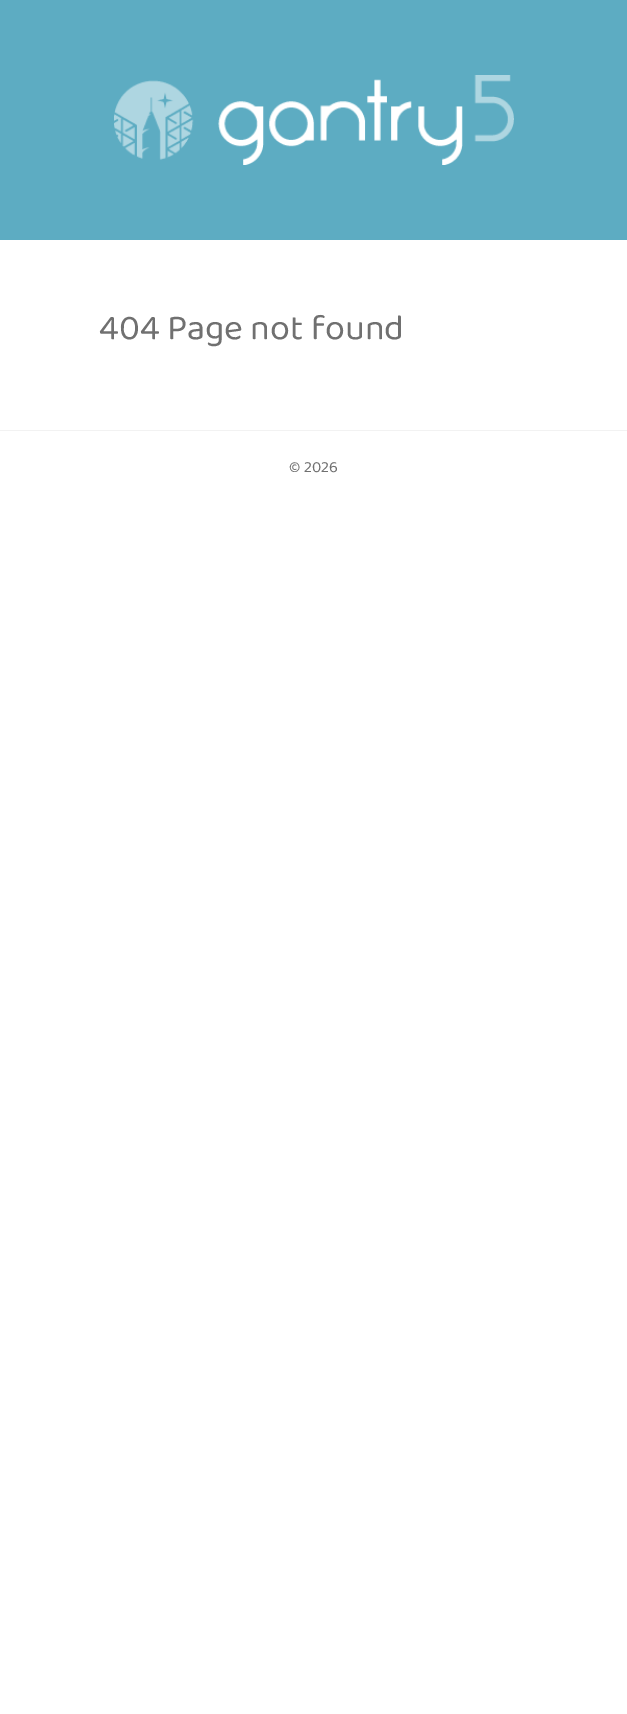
%!PS
<< /PageSize [627 1714] >> setpagedevice
/co { dup -16 bitshift 255 div exch dup -8 bitshift 255 and 255 div exch 255 and 255 div setrgbcolor } def
/fn { [ exch dup neg 0 0 3 -1 roll 0 0 ] selectfont } def
/tx { co fn moveto show } def
/bx { co rectfill } def
/im { 5 dict begin { /h /w /y /x /name } { exch def } forall
  gsave x y translate w h scale
  w h 8 [w 0 0 h 0 0] name (r) file false 3 colorimage grestore end } def
0 1714 translate 1 -1 scale
4 setmiterlimit
0 0 627 1714 16#FFFFFF bx
0 0 627 240 16#5DACC2 bx
(media/1.raw) 114 75 400 90 im
0 430 627 1 16#F2F2F2 bx
(404 Page not found) 99 339 /Baloo2-Regular 36 16#707070 tx
(© 2026) 289 472 /Baloo2-Regular 16 16#707070 tx
showpage
